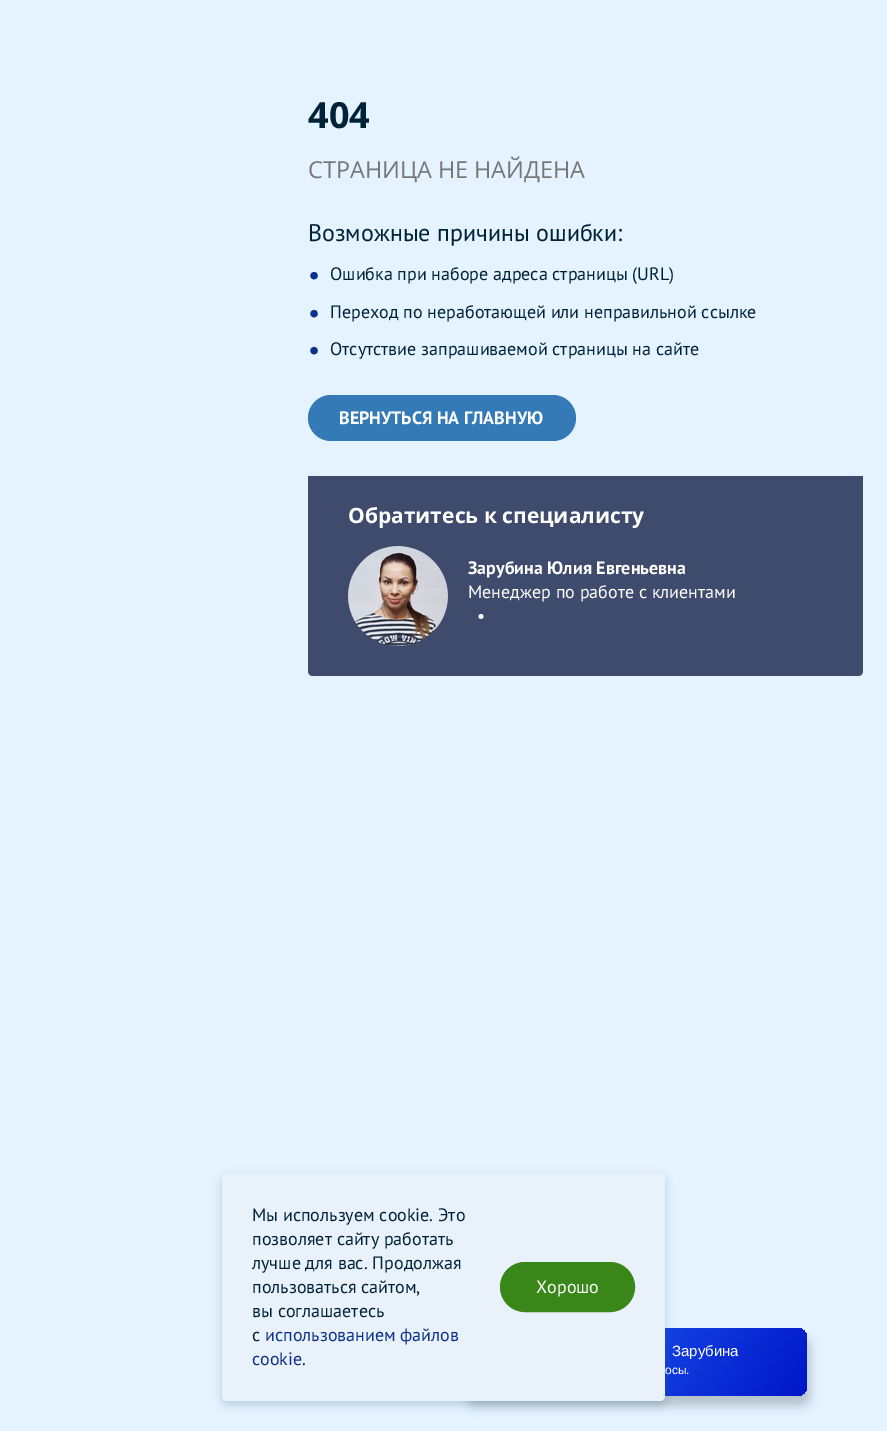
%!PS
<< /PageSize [887 1431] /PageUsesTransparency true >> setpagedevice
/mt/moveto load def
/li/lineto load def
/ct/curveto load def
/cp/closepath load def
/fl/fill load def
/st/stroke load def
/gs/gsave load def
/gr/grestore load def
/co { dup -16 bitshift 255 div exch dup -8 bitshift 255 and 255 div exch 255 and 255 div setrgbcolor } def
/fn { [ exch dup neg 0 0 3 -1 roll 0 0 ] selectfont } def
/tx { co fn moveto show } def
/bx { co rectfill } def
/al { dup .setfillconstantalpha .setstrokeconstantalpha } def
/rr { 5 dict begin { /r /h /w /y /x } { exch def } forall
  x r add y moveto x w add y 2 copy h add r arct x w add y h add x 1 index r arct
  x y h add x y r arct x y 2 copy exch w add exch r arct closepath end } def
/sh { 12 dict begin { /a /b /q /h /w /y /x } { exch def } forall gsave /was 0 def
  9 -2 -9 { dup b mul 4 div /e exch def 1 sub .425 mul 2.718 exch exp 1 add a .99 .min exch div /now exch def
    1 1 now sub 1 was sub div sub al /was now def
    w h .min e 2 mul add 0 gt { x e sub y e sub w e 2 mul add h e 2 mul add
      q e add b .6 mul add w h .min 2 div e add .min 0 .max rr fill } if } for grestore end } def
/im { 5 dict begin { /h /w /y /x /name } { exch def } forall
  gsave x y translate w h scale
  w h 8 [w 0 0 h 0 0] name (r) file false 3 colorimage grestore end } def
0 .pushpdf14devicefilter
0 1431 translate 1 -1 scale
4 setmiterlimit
0 0 887 1431 16#E5F2FF bx
16#337AB7 co
308 395 268 46 23 rr fl
16#3E4B6C co
308 476 mt 863 476 li 863 671 li 863 674 861 676 858 676 ct 313 676 li 310 676 308 674 308 671 ct cp fl
(media/1.raw) 348 546 100 100 im
16#000000 co
466 1338 344 68 10 5 .2 sh
gs 463 1328 344 68 10 rr clip newpath
<< /ShadingType 2 /ColorSpace /DeviceRGB /Coords [772 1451 498 1273] /Extend [true true] /Function << /FunctionType 2 /Domain [0 1] /C0 [0 .086 .784] /C1 [.161 .435 1] /N 1 >> >> shfill gr
16#35708B co
222 1177 443 228 5 4.5 .25 sh
16#E9F2FB co
222 1173 443 228 5 rr fl
16#398718 co
500.5 1262.5 134 49 24.5 rr gs fl gr
st
(404) 308 128 /OpenSans-Bold 36 16#002337 tx
(СТРАНИЦА НЕ НАЙДЕНА) 308 178 /OpenSans-Regular 23.4 16#777777 tx
(Возможные причины ошибки:) 308 241 /PTSans-Regular 24 16#002337 tx
(•) 308 284 /PTSans-Regular 27 16#0D318A tx
(Ошибка при наборе адреса страницы \(URL\)) 330 280 /PTSans-Regular 18 16#002337 tx
(•) 308 322 /PTSans-Regular 27 16#0D318A tx
(Переход по неработающей или неправильной ссылке) 330 318 /PTSans-Regular 18 16#002337 tx
(•) 308 359 /PTSans-Regular 27 16#0D318A tx
(Отсутствие запрашиваемой страницы на сайте) 330 355 /PTSans-Regular 18 16#002337 tx
(ВЕРНУТЬСЯ НА ГЛАВНУЮ) 339 424 /PTSans-Bold 18 16#FFFFFF tx
(Обратитесь к специалисту) 348 523 /OpenSans-Bold 21 16#FFFFFF tx
(Зарубина Юлия Евгеньевна) 468 574 /PTSans-Bold 18 16#FFFFFF tx
(Менеджер по работе с клиентами) 468 598 /PTSans-Regular 18 16#FFFFFF tx
(•) 477 622 /PTSans-Regular 18 16#FFFFFF tx
(Мы используем cookie. Это) 252 1221 /PTSans-Regular 18 16#002337 tx
(позволяет сайту работать) 252 1245 /PTSans-Regular 18 16#002337 tx
(лучше для вас. Продолжая) 252 1269 /PTSans-Regular 18 16#002337 tx
(пользоваться сайтом,) 252 1293 /PTSans-Regular 18 16#002337 tx
(вы соглашаетесь) 252 1317 /PTSans-Regular 18 16#002337 tx
(с) 252 1341 /PTSans-Regular 18 16#002337 tx
(использованием файлов) 265 1341 /PTSans-Regular 18 16#0D318A tx
(cookie) 252 1365 /PTSans-Regular 18 16#0D318A tx
(.) 302 1365 /PTSans-Regular 18 16#002337 tx
(Хорошо) 536 1293 /PTSans-Regular 18 16#FFFFFF tx
(Зарубина) 672 1356 /LiberationSans-Regular 15 16#FFFFFF tx
(осы.) 665 1374 /LiberationSans-Regular 12 16#FFFFFF tx
.poppdf14devicefilter showpage
